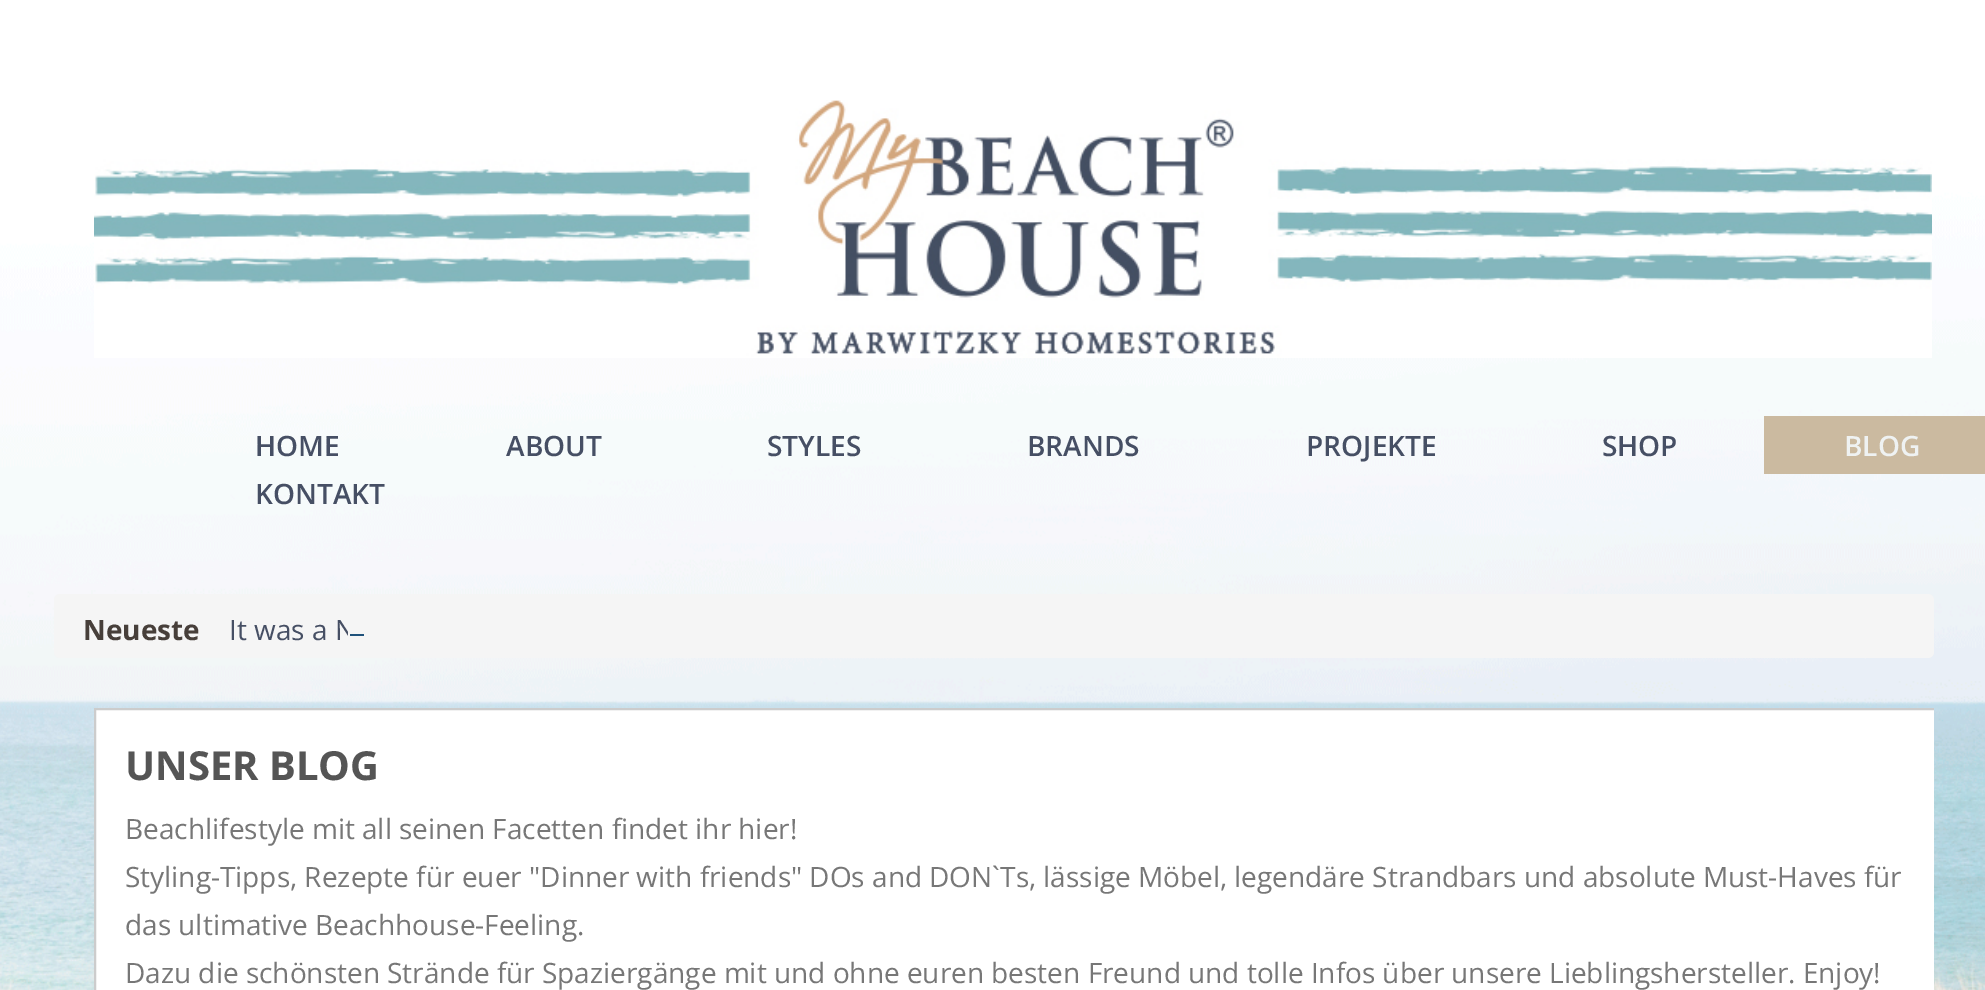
%!PS
<< /PageSize [1985 990] >> setpagedevice
/fl/fill load def
/gs/gsave load def
/gr/grestore load def
/lw/setlinewidth load def
/co { dup -16 bitshift 255 div exch dup -8 bitshift 255 and 255 div exch 255 and 255 div setrgbcolor } def
/fn { [ exch dup neg 0 0 3 -1 roll 0 0 ] selectfont } def
/tx { co fn moveto show } def
/bx { co rectfill } def
/rr { 5 dict begin { /r /h /w /y /x } { exch def } forall
  x r add y moveto x w add y 2 copy h add r arct x w add y h add x 1 index r arct
  x y h add x y r arct x y 2 copy exch w add exch r arct closepath end } def
/im { 5 dict begin { /h /w /y /x /name } { exch def } forall
  gsave x y translate w h scale
  w h 8 [w 0 0 h 0 0] name (r) file false 3 colorimage grestore end } def
0 990 translate 1 -1 scale
4 setmiterlimit
0 0 1985 990 16#FFFFFF bx
(media/1.raw) 0 192 1985 798 im
(media/2.raw) 94 100 1838 258 im
1764 416 221 58 16#CBBAA0 bx
16#F5F5F5 co
54 594 1880 64 6 rr fl
96 710 1838 280 16#FFFFFF bx
gs
94 708 1840 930 rectclip
16#CCCCCC co
2 lw
95 709 1878 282 rectstroke
gr
(HOME) 255 456 /OpenSans-SemiBold 28 16#464F64 tx
(ABOUT) 506 456 /OpenSans-SemiBold 28 16#464F64 tx
(STYLES) 767 456 /OpenSans-SemiBold 28 16#464F64 tx
(BRANDS) 1027 456 /OpenSans-SemiBold 28 16#464F64 tx
(PROJEKTE) 1306 456 /OpenSans-SemiBold 28 16#464F64 tx
(SHOP) 1602 456 /OpenSans-SemiBold 28 16#464F64 tx
(BLOG) 1844 456 /OpenSans-SemiBold 28 16#EFF2F2 tx
(KONTAKT) 255 504 /OpenSans-SemiBold 28 16#464F64 tx
(Neueste) 83 640 /OpenSans-Bold 28 16#473F3A tx
(It was a N) 229 640 /OpenSans-Regular 28 16#464F64 tx
348 620 6 20 16#F5F5F5 bx
350 634 14 2 16#1F527B bx
(UNSER BLOG) 125 780 /OpenSans-Bold 40 16#555555 tx
(Beachlifestyle mit all seinen Facetten findet ihr hier!) 125 839 /OpenSans-Regular 28 16#777777 tx
(Styling-Tipps, Rezepte für euer "Dinner with friends" DOs and DON`Ts, lässige Möbel, legendäre Strandbars und absolute Must-Haves für) 125 887 /OpenSans-Regular 28 16#777777 tx
(das ultimative Beachhouse-Feeling.) 125 935 /OpenSans-Regular 28 16#777777 tx
(Dazu die schönsten Strände für Spaziergänge mit und ohne euren besten Freund und tolle Infos über unsere Lieblingshersteller. Enjoy!) 125 983 /OpenSans-Regular 28 16#777777 tx
showpage
